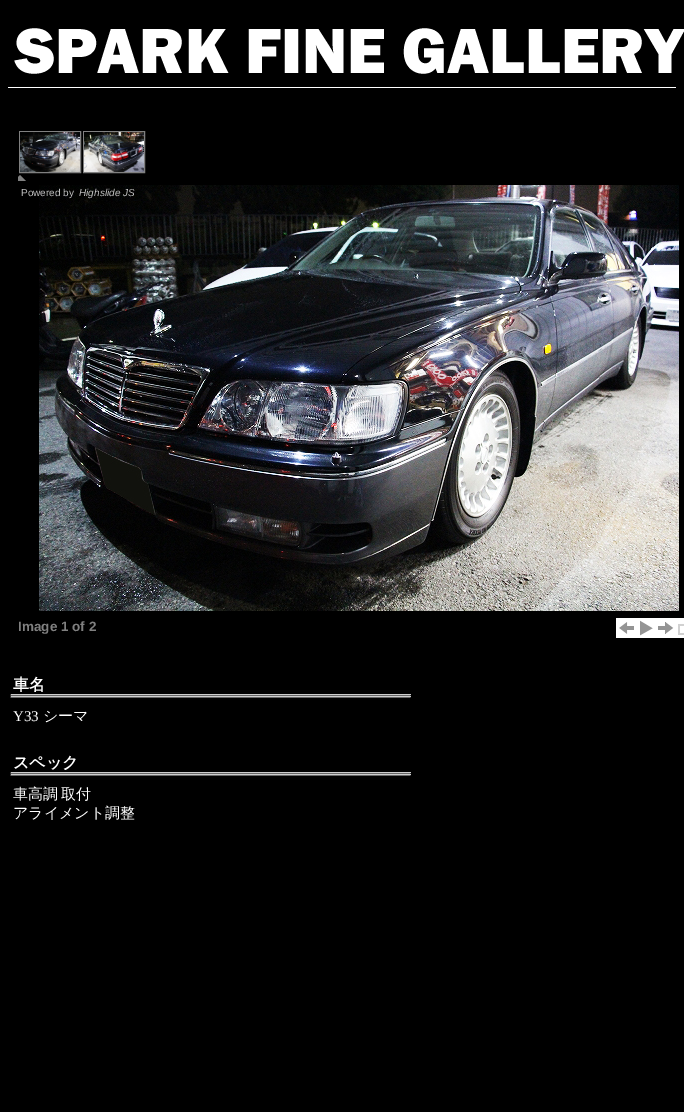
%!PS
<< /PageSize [684 1112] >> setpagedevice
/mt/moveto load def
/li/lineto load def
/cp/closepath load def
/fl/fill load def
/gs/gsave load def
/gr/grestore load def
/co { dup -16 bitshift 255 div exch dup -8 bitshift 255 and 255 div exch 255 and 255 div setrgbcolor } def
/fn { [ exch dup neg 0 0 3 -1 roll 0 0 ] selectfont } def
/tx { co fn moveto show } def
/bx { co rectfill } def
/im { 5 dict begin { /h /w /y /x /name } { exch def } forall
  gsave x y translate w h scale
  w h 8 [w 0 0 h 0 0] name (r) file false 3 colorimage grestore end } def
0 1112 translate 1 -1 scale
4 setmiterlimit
0 0 684 1112 16#000000 bx
(media/1.raw) 39 185 640 426 im
16#808080 co
19.5 131.5 61 41 rectstroke
(media/2.raw) 20 132 60 40 im
83.5 131.5 61 41 rectstroke
(media/3.raw) 84 132 60 40 im
gs
18 128 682 56 rectclip
26 181 mt 14 181 li 20 175 li cp fl
gr
(media/4.raw) 616 618 20 20 im
(media/5.raw) 636 618 20 20 im
(media/6.raw) 656 618 20 20 im
(media/7.raw) 676 618 8 20 im
8 87 668 1 16#FFFFFF bx
(media/8.raw) 14 28 670 46 im
(media/9.raw) 10 694 401 4 im
(media/9.raw) 10 772 401 4 im
(Powered by) 21 196 /LiberationSans-Regular 10 16#C0C0C0 tx
(Highslide JS) 79 196 /LiberationSans-Italic 10 16#C0C0C0 tx
(Image 1 of 2) 18 631 /LiberationSans-Bold 13.5 16#808080 tx
(車名) 13 690 /WenQuanYiZenHei-Bold 16 16#FFFFFF tx
(Y33) 13 721 /LiberationSerif-Regular 15 16#FFFFFF tx
(シーマ) 43 721 /WenQuanYiZenHei-Medium 15 16#FFFFFF tx
(スペック) 13 768 /WenQuanYiZenHei-Bold 16 16#FFFFFF tx
/WenQuanYiZenHei-Medium 15 fn
13 799 mt -1 0 32 (車高調 取付) widthshow
(アライメント調整) 13 818 /WenQuanYiZenHei-Medium 15 16#FFFFFF tx
showpage
